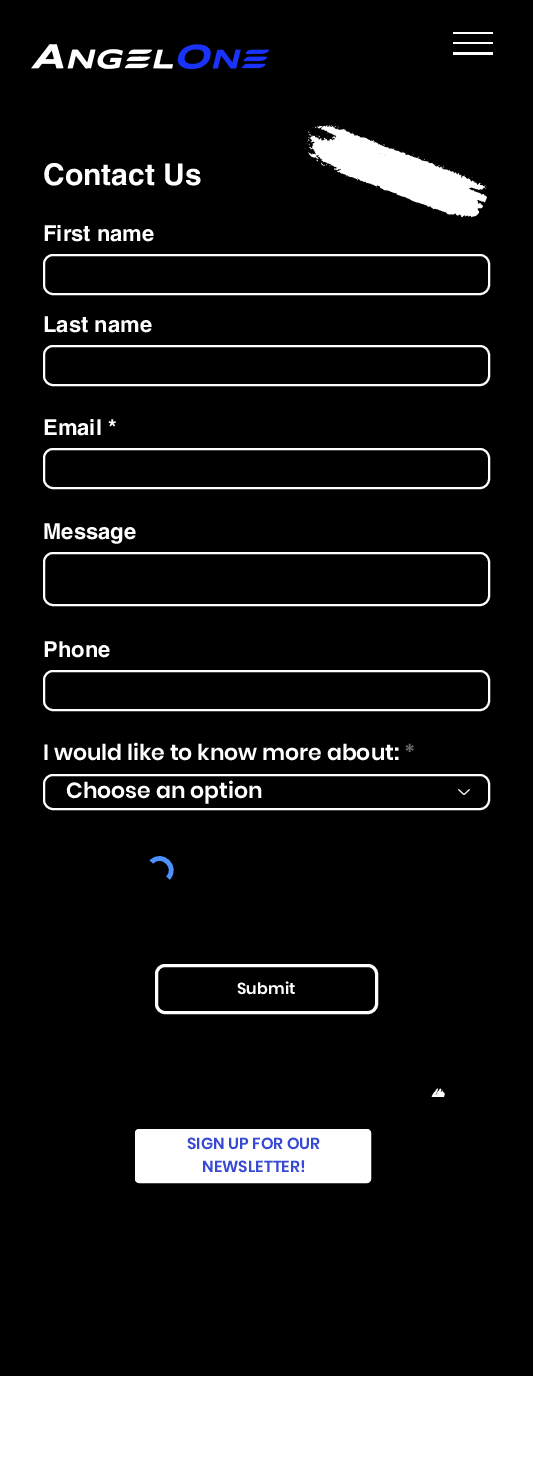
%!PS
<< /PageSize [533 1483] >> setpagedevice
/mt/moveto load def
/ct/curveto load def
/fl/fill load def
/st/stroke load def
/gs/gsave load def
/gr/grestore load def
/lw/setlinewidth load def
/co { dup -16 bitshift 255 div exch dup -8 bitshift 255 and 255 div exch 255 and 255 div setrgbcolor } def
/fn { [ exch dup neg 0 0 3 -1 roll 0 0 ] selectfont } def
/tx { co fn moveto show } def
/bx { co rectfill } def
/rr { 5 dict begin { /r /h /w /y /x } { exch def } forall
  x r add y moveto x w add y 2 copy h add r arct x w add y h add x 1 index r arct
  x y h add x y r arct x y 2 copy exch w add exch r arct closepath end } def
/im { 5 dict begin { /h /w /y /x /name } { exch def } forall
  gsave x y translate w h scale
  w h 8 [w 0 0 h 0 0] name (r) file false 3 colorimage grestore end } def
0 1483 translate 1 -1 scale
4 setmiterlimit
0 0 533 1483 16#FFFFFF bx
0 0 533 1376 16#000000 bx
(media/1.raw) 31 44 239 26 im
453 32 40 2 16#FFFFFF bx
453 42 40 2 16#FFFFFF bx
453 52 40 3 16#FFFFFF bx
(media/2.raw) 304 124 183 94 im
2 lw
44 255 445 39 9 rr st
44 346 445 39 9 rr st
44 449 445 39 9 rr st
44 553 445 52 9 rr st
44 671 445 39 9 rr st
44 775 445 34 9 rr st
(media/3.raw) 458 789 12 6 im
16#4D90FE co
4.6 lw
151.5 862 mt 162 851 178.5 867.5 168 878 ct st
16#FFFFFF co
3 lw
156.5 965.5 220 47 8.5 rr st
(media/4.raw) 431 1088 14 9 im
135.5 1129.5 235 53 3.5 rr gs fl gr
1 lw
st
(Contact Us) 43 185 /helvetica-Bold 30 16#FFFFFF tx
(First name) 43 241 /helvetica-Bold 22 16#FFFFFF tx
(Last name) 43 332 /helvetica-Bold 22 16#FFFFFF tx
(Email *) 43 435 /helvetica-Bold 22 16#FFFFFF tx
(Message) 43 539 /helvetica-Bold 22 16#FFFFFF tx
(Phone) 43 657 /helvetica-Bold 22 16#FFFFFF tx
(I would like to know more about:) 43 760 /Poppins-SemiBold 22 16#FFFFFF tx
(*) 404 760 /Poppins-SemiBold 22 16#666666 tx
(Choose an option) 66 798 /Poppins-SemiBold 22 16#FFFFFF tx
(Submit) 237 994 /Poppins-SemiBold 16 16#FFFFFF tx
(SIGN UP FOR OUR) 187 1149 /Poppins-SemiBold 16 16#384AD3 tx
(NEWSLETTER!) 202 1172 /Poppins-SemiBold 16 16#384AD3 tx
showpage
